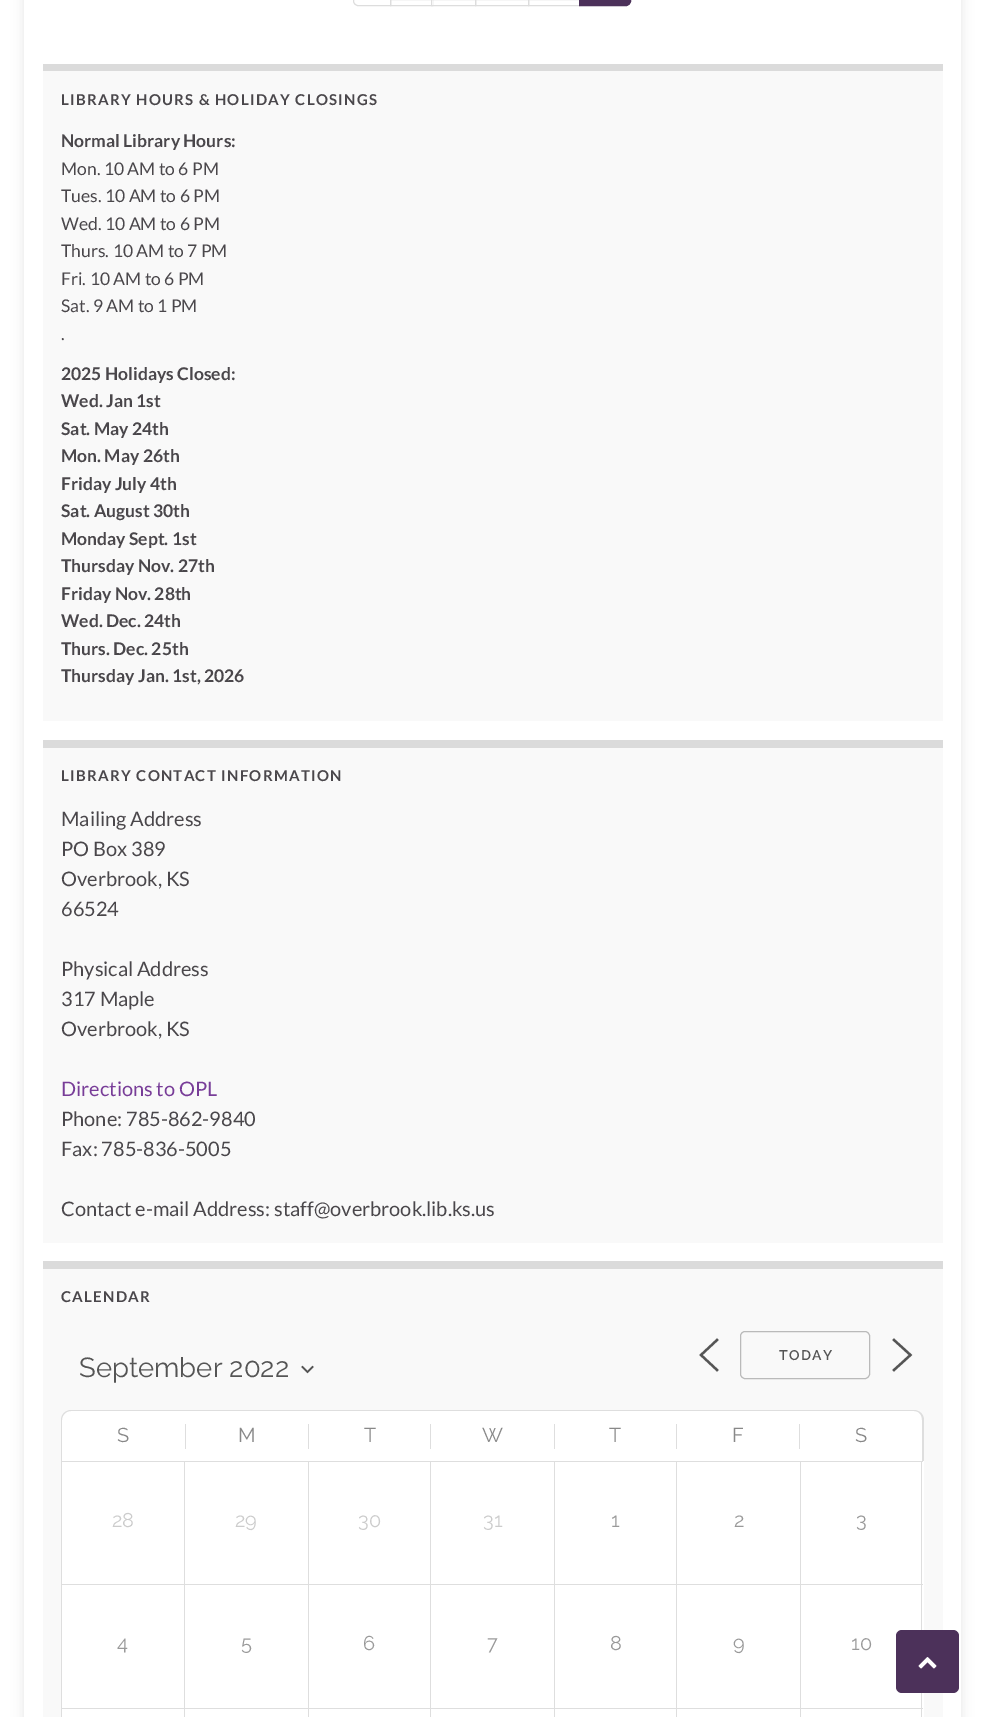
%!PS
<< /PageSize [983 1717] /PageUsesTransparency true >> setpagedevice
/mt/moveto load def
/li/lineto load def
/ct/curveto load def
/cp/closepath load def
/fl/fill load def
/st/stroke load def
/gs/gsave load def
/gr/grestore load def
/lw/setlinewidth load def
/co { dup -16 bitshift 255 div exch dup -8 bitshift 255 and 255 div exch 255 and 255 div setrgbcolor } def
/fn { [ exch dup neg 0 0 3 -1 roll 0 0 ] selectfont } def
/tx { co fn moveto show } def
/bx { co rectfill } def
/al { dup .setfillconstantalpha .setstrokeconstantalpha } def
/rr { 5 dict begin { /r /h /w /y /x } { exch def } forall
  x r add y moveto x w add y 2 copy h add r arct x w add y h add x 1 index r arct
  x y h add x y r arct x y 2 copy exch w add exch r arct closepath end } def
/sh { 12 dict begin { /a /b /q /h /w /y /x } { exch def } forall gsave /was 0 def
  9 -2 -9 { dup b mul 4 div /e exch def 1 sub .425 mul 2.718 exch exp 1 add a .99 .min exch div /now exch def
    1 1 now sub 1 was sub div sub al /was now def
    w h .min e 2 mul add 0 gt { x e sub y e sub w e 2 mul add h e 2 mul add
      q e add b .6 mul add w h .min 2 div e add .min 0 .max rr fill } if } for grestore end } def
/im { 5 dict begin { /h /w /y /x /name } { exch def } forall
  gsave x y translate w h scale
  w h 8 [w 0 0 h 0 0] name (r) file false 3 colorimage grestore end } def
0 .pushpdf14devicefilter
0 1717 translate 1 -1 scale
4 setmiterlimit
0 0 983 1717 16#FFFFFF bx
gs
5 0 mt 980 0 li 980 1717 li 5 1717 li cp 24 -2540 mt 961 -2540 li 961 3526 li 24 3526 li cp eoclip newpath
16#000000 co
24 -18 937 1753 0 6 .1 sh
gr
16#DDDDDD co
358 -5.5 mt 390.5 -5.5 li 390.5 5.5 li 358 5.5 li 355.5 5.5 353.5 3.5 353.5 1 ct 353.5 -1 li 353.5 -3.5 355.5 -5.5 358 -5.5 ct cp st
390 0 1 5 16#FFFFFF bx
16#DDDDDD co
390.5 -.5 42 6 rectstroke
431 0 2 5 16#FFFFFF bx
16#DDDDDD co
431.5 -.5 44 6 rectstroke
475 0 1 5 16#FFFFFF bx
16#DDDDDD co
475.5 -.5 53 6 rectstroke
528 0 1 5 16#FFFFFF bx
16#DDDDDD co
528.5 -.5 51 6 rectstroke
16#4C315A co
579.5 -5.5 mt 626 -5.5 li 628.5 -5.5 630.5 -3.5 630.5 -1 ct 630.5 1 li 630.5 3.5 628.5 5.5 626 5.5 ct 579.5 5.5 li cp gs fl gr
st
43 71 900 650 16#F9F9F9 bx
43 64 900 7 16#DBDBDB bx
43 748 900 495 16#F9F9F9 bx
43 740 900 8 16#DBDBDB bx
43 1269 900 448 16#F9F9F9 bx
43 1261 900 8 16#DBDBDB bx
16#555555 co
1.7 lw
2 setlinecap
302.5 1367 mt 307.5 1372 li 312.5 1367 li st
2.3 lw
717 1370 mt 701 1355 li 717 1340 li st
16#BABABA co
1 lw
0 setlinecap
740.5 1331.5 129 47 4.5 rr st
16#555555 co
2.3 lw
2 setlinecap
894 1370 mt 910.5 1355 li 894 1340 li st
16#FFFFFF co
71 1410 mt 914 1410 li 919.5 1410 924 1414.5 924 1420 ct 924 1461 li 61 1461 li 61 1420 li 61 1414.5 65.5 1410 71 1410 ct cp fl
16#DEDEDE co
71 1410 mt 914 1410 li 919 1410 924 1414 924 1420 ct 924 1461 li 61 1461 li 61 1420 li 61 1414 66 1410 71 1410 ct cp 71 1411 mt 914 1411 li 919 1411 922 1415 922 1420 ct 922 1461 li 62 1461 li 62 1420 li 62 1415 66 1411 71 1411 ct cp eofill
185 1424 1 25 16#DEDEDE bx
308 1424 1 25 16#DEDEDE bx
430 1424 1 25 16#DEDEDE bx
554 1424 1 25 16#DEDEDE bx
676 1424 1 25 16#DEDEDE bx
799 1424 1 25 16#DEDEDE bx
62 1461 862 256 16#FFFFFF bx
61 1461 862 1 16#DEDEDE bx
61 1461 1 123 16#DEDEDE bx
184 1461 1 123 16#DEDEDE bx
308 1461 1 123 16#DEDEDE bx
430 1461 1 123 16#DEDEDE bx
554 1461 1 123 16#DEDEDE bx
676 1461 1 123 16#DEDEDE bx
921 1461 1 123 16#DEDEDE bx
800 1461 1 123 16#DEDEDE bx
61 1584 862 1 16#DEDEDE bx
61 1584 1 124 16#DEDEDE bx
184 1584 1 124 16#DEDEDE bx
308 1584 1 124 16#DEDEDE bx
430 1584 1 124 16#DEDEDE bx
554 1584 1 124 16#DEDEDE bx
676 1584 1 124 16#DEDEDE bx
921 1584 1 124 16#DEDEDE bx
800 1584 1 124 16#DEDEDE bx
61 1708 862 1 16#DEDEDE bx
61 1708 1 9 16#DEDEDE bx
184 1708 1 9 16#DEDEDE bx
308 1708 1 9 16#DEDEDE bx
430 1708 1 9 16#DEDEDE bx
554 1708 1 9 16#DEDEDE bx
676 1708 1 9 16#DEDEDE bx
921 1708 1 9 16#DEDEDE bx
800 1708 1 9 16#DEDEDE bx
16#4C315A co
896 1630 63 63 6 rr fl
(media/1.raw) 918 1657 19 12 im
/Lato-Bold 15 fn
16#4A474B co
61 105 mt 1.25 0 (LIBRARY HOURS & HOLIDAY CLOSINGS) ashow
(Normal Library Hours:) 61 147 /Lato-Bold 17.5 16#4A474B tx
(Mon. 10 AM to 6 PM) 61 175 /Lato-Regular 17.5 16#4A474B tx
(Tues. 10 AM to 6 PM) 61 202 /Lato-Regular 17.5 16#4A474B tx
(Wed. 10 AM to 6 PM) 61 230 /Lato-Regular 17.5 16#4A474B tx
(Thurs. 10 AM to 7 PM) 61 257 /Lato-Regular 17.5 16#4A474B tx
(Fri. 10 AM to 6 PM) 61 285 /Lato-Regular 17.5 16#4A474B tx
(Sat. 9 AM to 1 PM) 61 312 /Lato-Regular 17.5 16#4A474B tx
(.) 61 340 /Lato-Regular 17.5 16#4A474B tx
(2025 Holidays Closed:) 61 380 /Lato-Bold 17.5 16#4A474B tx
(Wed. Jan 1st) 61 407 /Lato-Bold 17.5 16#4A474B tx
(Sat. May 24th) 61 435 /Lato-Bold 17.5 16#4A474B tx
(Mon. May 26th) 61 462 /Lato-Bold 17.5 16#4A474B tx
(Friday July 4th) 61 490 /Lato-Bold 17.5 16#4A474B tx
(Sat. August 30th) 61 517 /Lato-Bold 17.5 16#4A474B tx
(Monday Sept. 1st) 61 545 /Lato-Bold 17.5 16#4A474B tx
(Thursday Nov. 27th) 61 572 /Lato-Bold 17.5 16#4A474B tx
(Friday Nov. 28th) 61 600 /Lato-Bold 17.5 16#4A474B tx
(Wed. Dec. 24th) 61 627 /Lato-Bold 17.5 16#4A474B tx
(Thurs. Dec. 25th) 61 655 /Lato-Bold 17.5 16#4A474B tx
(Thursday Jan. 1st, 2026) 61 682 /Lato-Bold 17.5 16#4A474B tx
/Lato-Bold 15 fn
61 781 mt 1.25 0 (LIBRARY CONTACT INFORMATION) ashow
(Mailing Address) 61 826 /Lato-Regular 20 16#4A474B tx
(PO Box 389) 61 856 /Lato-Regular 20 16#4A474B tx
(Overbrook, KS) 61 886 /Lato-Regular 20 16#4A474B tx
(66524) 61 916 /Lato-Regular 20 16#4A474B tx
(Physical Address) 61 976 /Lato-Regular 20 16#4A474B tx
(317 Maple) 61 1006 /Lato-Regular 20 16#4A474B tx
(Overbrook, KS) 61 1036 /Lato-Regular 20 16#4A474B tx
(Directions to OPL) 61 1096 /Lato-Regular 20 16#783D98 tx
(Phone: 785-862-9840) 61 1126 /Lato-Regular 20 16#4A474B tx
(Fax: 785-836-5005) 61 1156 /Lato-Regular 20 16#4A474B tx
(Contact e-mail Address: staff@overbrook.lib.ks.us) 61 1216 /Lato-Regular 20 16#4A474B tx
/Lato-Bold 15 fn
61 1302 mt 1.25 0 (CALENDAR) ashow
(September 2022) 79 1377 /Raleway-Regular 27.5 16#555555 tx
/Raleway-SemiBold 14 fn
779 1360 mt 1.25 0 (TODAY) ashow
(S) 117 1442 /Raleway-Regular 20 16#888888 tx
(M) 238 1442 /Raleway-Regular 20 16#888888 tx
(T) 364 1442 /Raleway-Regular 20 16#888888 tx
(W) 482 1442 /Raleway-Regular 20 16#888888 tx
(T) 609 1442 /Raleway-Regular 20 16#888888 tx
(F) 732 1442 /Raleway-Regular 20 16#888888 tx
(S) 855 1442 /Raleway-Regular 20 16#888888 tx
(28) 112 1527 /Raleway-Regular 20 16#CCCCCC tx
(29) 235 1527 /Raleway-Regular 20 16#CCCCCC tx
(30) 358 1527 /Raleway-Regular 20 16#CCCCCC tx
(31) 483 1527 /Raleway-Regular 20 16#CCCCCC tx
(1) 611 1527 /Raleway-Regular 20 16#999999 tx
(2) 734 1527 /Raleway-Regular 20 16#999999 tx
(3) 856 1527 /Raleway-Regular 20 16#999999 tx
(4) 117 1650 /Raleway-Regular 20 16#999999 tx
(5) 241 1650 /Raleway-Regular 20 16#999999 tx
(6) 363 1650 /Raleway-Regular 20 16#999999 tx
(7) 487 1650 /Raleway-Regular 20 16#999999 tx
(8) 610 1650 /Raleway-Regular 20 16#999999 tx
(9) 733 1650 /Raleway-Regular 20 16#999999 tx
(10) 851 1650 /Raleway-Regular 20 16#999999 tx
.poppdf14devicefilter showpage
